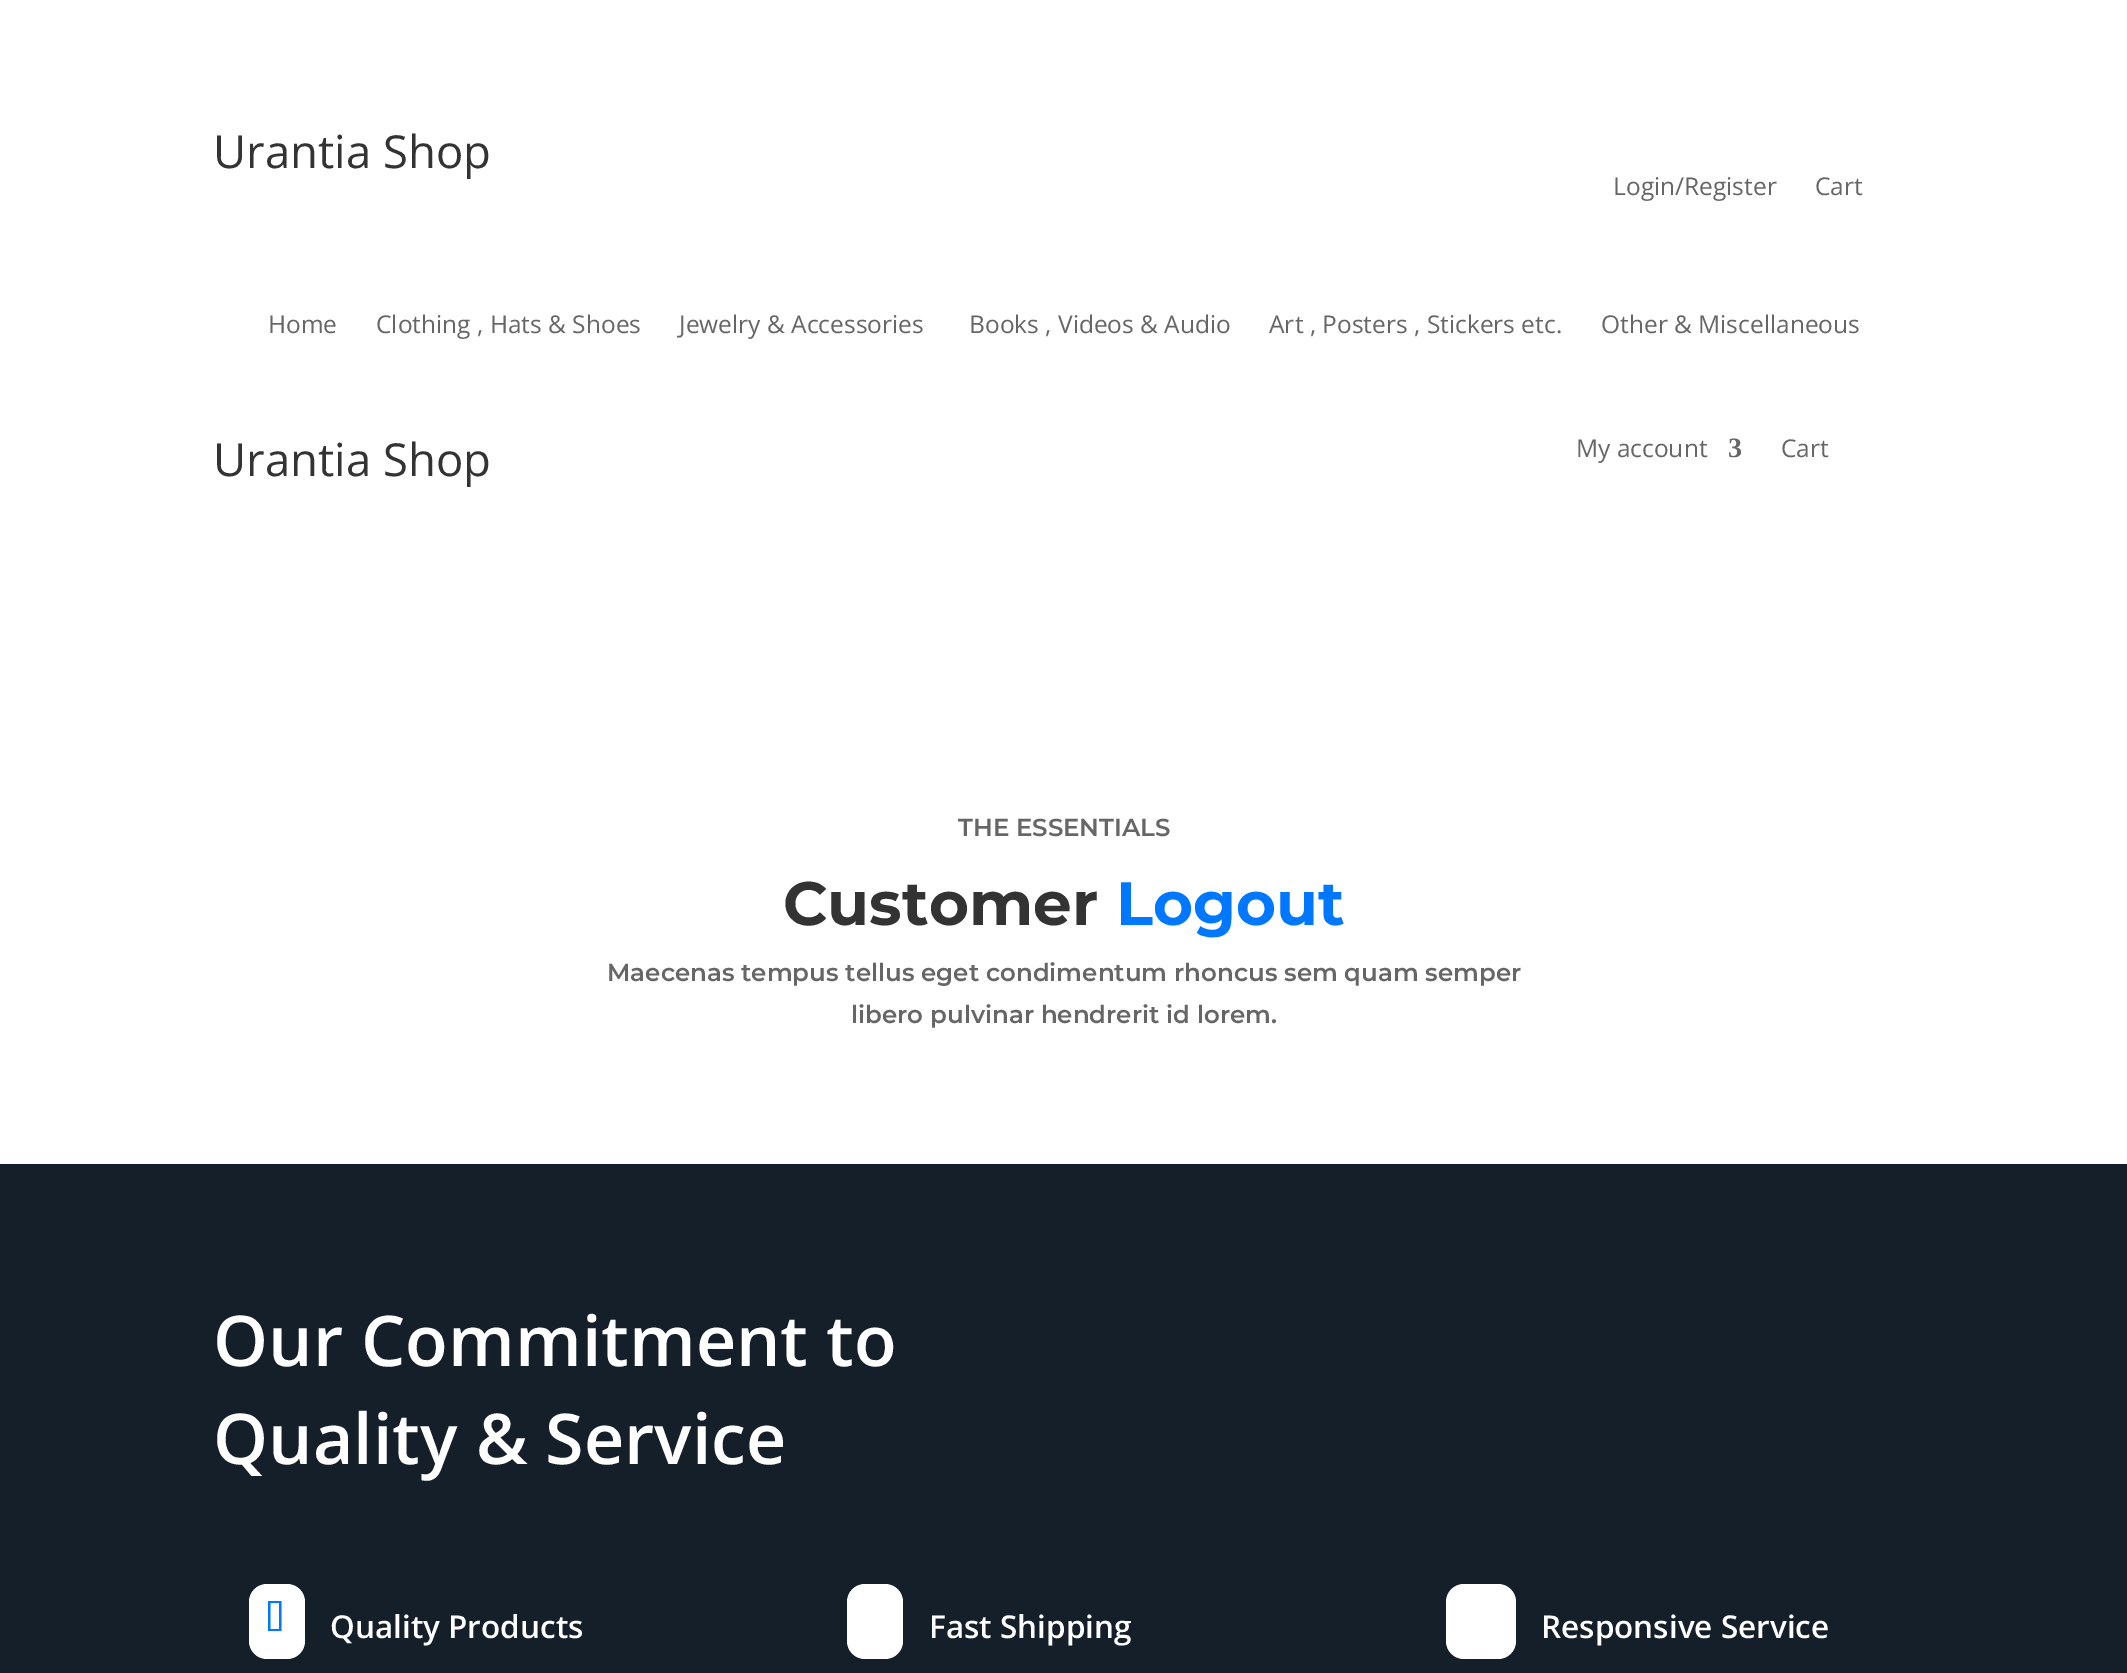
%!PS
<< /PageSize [2127 1673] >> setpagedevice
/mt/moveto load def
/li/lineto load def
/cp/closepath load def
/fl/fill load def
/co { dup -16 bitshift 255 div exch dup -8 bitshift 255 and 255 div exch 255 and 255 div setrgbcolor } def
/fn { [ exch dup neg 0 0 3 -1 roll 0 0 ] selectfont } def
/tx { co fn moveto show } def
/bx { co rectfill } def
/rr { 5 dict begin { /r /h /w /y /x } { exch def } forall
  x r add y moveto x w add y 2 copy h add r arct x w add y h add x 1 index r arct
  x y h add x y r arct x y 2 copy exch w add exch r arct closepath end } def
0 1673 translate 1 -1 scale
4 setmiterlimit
0 0 2127 1673 16#FFFFFF bx
0 1164 2127 509 16#151F29 bx
16#FFFFFF co
249 1584 56 75 18 rr fl
16#0077FF co
270.5 1629 mt 270.5 1603 li 279 1603 li 279 1629 li cp 268 1631 mt 281.5 1631 li 281.5 1601 li 268 1601 li cp fl
16#FFFFFF co
847 1584 56 75 18 rr fl
1446 1584 70 75 18 rr fl
(Urantia Shop) 213 168 /OpenSans-Regular 45.5 16#333333 tx
(Login/Register) 1613 195 /OpenSans-Regular 24.5 16#666666 tx
(Cart) 1815 195 /OpenSans-Regular 24.5 16#666666 tx
(Home) 268 333 /OpenSans-Regular 24.5 16#666666 tx
(Clothing , Hats & Shoes) 376 333 /OpenSans-Regular 24.5 16#666666 tx
(Jewelry & Accessories) 679 333 /OpenSans-Regular 24.5 16#666666 tx
(Books , Videos & Audio) 969 333 /OpenSans-Regular 24.5 16#666666 tx
(Art , Posters , Stickers etc.) 1269 333 /OpenSans-Regular 24.5 16#666666 tx
(Other & Miscellaneous) 1601 333 /OpenSans-Regular 24.5 16#666666 tx
(Urantia Shop) 213 476 /OpenSans-Regular 45.5 16#333333 tx
(My account) 1576 457 /OpenSans-Regular 24.5 16#666666 tx
(3) 1728 457 /LiberationSerif-Bold 28 16#666666 tx
(Cart) 1781 457 /OpenSans-Regular 24.5 16#666666 tx
(THE ESSENTIALS) 958 836 /Montserrat-SemiBold 24.5 16#666666 tx
(Customer) 783 925 /Montserrat-Bold 61.25 16#333333 tx
(Logout) 1116 925 /Montserrat-Bold 61.25 16#0077FF tx
(Maecenas tempus tellus eget condimentum rhoncus sem quam semper) 607 981 /Montserrat-SemiBold 24.5 16#666666 tx
(libero pulvinar hendrerit id lorem.) 851 1023 /Montserrat-SemiBold 24.5 16#666666 tx
(Our Commitment to) 213 1366 /OpenSans-SemiBold 70 16#FFFFFF tx
(Quality & Service) 213 1464 /OpenSans-SemiBold 70 16#FFFFFF tx
(Quality Products) 330 1638 /OpenSans-SemiBold 31.5 16#FFFFFF tx
(Fast Shipping) 929 1638 /OpenSans-SemiBold 31.5 16#FFFFFF tx
(Responsive Service) 1541 1638 /OpenSans-SemiBold 31.5 16#FFFFFF tx
showpage
